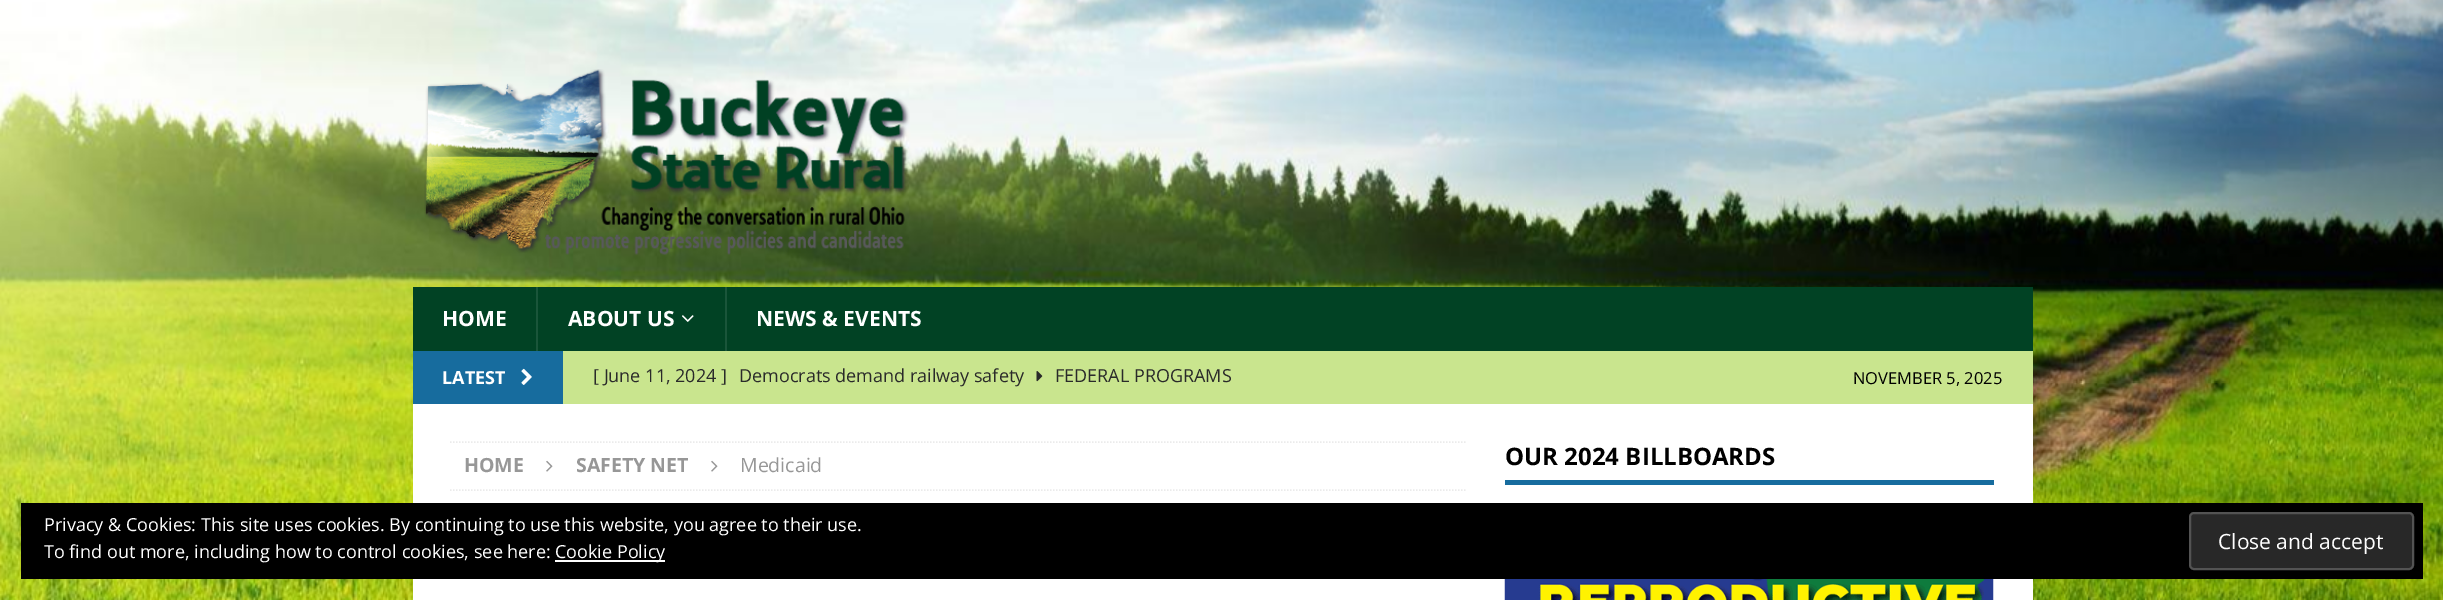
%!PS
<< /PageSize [2443 600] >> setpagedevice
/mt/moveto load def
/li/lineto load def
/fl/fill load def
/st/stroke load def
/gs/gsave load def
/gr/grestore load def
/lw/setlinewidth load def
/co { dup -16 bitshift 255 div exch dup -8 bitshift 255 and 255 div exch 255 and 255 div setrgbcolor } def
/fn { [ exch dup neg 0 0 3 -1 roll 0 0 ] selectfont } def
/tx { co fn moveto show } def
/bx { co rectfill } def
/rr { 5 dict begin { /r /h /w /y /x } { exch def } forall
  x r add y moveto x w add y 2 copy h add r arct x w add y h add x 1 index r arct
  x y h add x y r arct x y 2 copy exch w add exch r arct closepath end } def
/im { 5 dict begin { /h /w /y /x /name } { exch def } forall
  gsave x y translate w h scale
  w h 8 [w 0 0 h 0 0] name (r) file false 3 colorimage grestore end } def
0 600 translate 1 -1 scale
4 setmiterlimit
0 0 2443 600 16#FFFFFF bx
(media/1.raw) 0 0 2443 600 im
(media/2.raw) 424 69 486 186 im
413 287 1620 64 16#014224 bx
536 287 2 64 16#1A553A bx
(media/3.raw) 682 315 12 7 im
725 287 2 64 16#1A553A bx
563 351 1470 53 16#C9E58E bx
413 351 150 53 16#176C9E bx
(media/4.raw) 521 368 11 17 im
(media/5.raw) 1036 371 7 11 im
413 404 1620 196 16#FFFFFF bx
16#EBEBEB co
1.5 lw
[1.5 1.5] 0 setdash
450 442 mt 1467 442 li st
450 490 mt 1467 490 li st
(media/6.raw) 546 460 7 12 im
(media/6.raw) 711 460 7 12 im
1505 480 489 5 16#176C9E bx
(media/7.raw) 1504 579 490 21 im
21 503 2402 76 16#000000 bx
555 560 110 2 16#FFFFFF bx
16#282828 co
2190 513 223 56 4 rr gs fl gr
16#535353 co
2 lw
[] 0 setdash
st
(HOME) 442 326 /OpenSans-Bold 21 16#FFFFFF tx
(ABOUT US) 568 326 /OpenSans-Bold 21 16#FFFFFF tx
(NEWS & EVENTS) 756 326 /OpenSans-Bold 21 16#FFFFFF tx
(LATEST) 442 384 /OpenSans-Bold 18 16#FFFFFF tx
([ June 11, 2024 ]) 593 382 /OpenSans-Regular 18 16#2A2A2A tx
(Democrats demand railway safety) 739 382 /OpenSans-Regular 18 16#2A2A2A tx
(FEDERAL PROGRAMS) 1055 382 /OpenSans-Regular 18 16#2A2A2A tx
(NOVEMBER 5, 2025) 1853 384 /OpenSans-Regular 16.5 16#000000 tx
(HOME) 464 472 /OpenSans-Bold 19.5 16#979797 tx
(SAFETY NET) 576 472 /OpenSans-Bold 19.5 16#979797 tx
(Medicaid) 740 472 /OpenSans-Regular 19.5 16#979797 tx
(OUR 2024 BILLBOARDS) 1505 465 /OpenSans-Bold 24 16#000000 tx
(Privacy & Cookies: This site uses cookies. By continuing to use this website, you agree to their use.) 44 531 /OpenSans-Regular 18 16#FFFFFF tx
(To find out more, including how to control cookies, see here:) 44 558 /OpenSans-Regular 18 16#FFFFFF tx
(Cookie Policy) 555 558 /OpenSans-Regular 18 16#FFFFFF tx
(Close and accept) 2218 549 /OpenSans-Regular 21 16#FFFFFF tx
showpage
